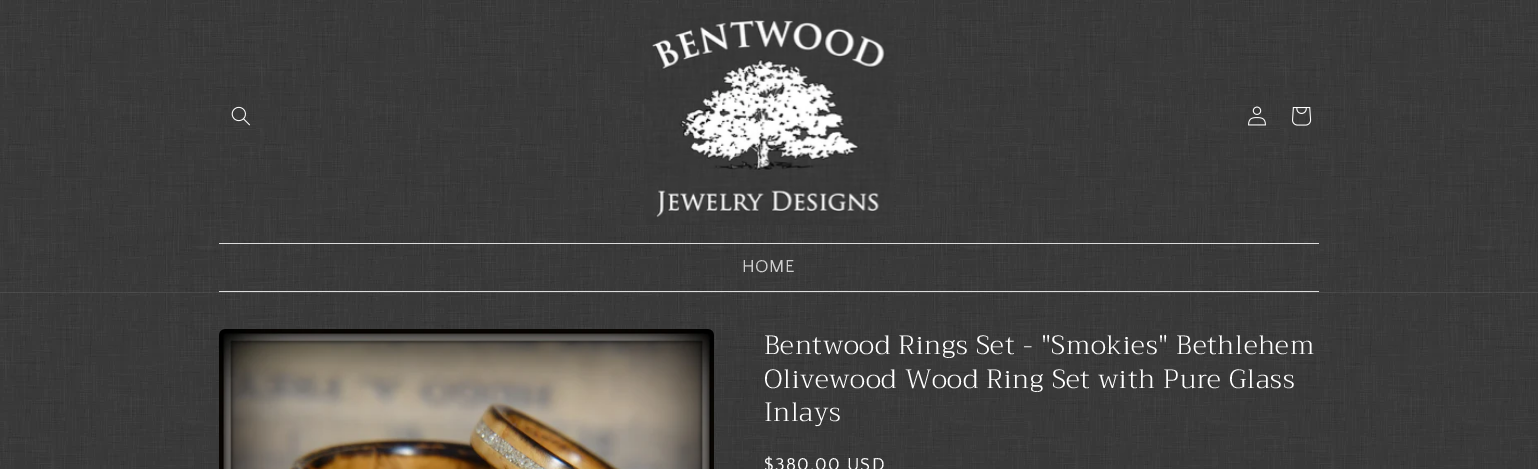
%!PS
<< /PageSize [1538 469] /PageUsesTransparency true >> setpagedevice
/mt/moveto load def
/co { dup -16 bitshift 255 div exch dup -8 bitshift 255 and 255 div exch 255 and 255 div setrgbcolor } def
/fn { [ exch dup neg 0 0 3 -1 roll 0 0 ] selectfont } def
/bx { co rectfill } def
/al { dup .setfillconstantalpha .setstrokeconstantalpha } def
/im { 5 dict begin { /h /w /y /x /name } { exch def } forall
  gsave x y translate w h scale
  w h 8 [w 0 0 h 0 0] name (r) file false 3 colorimage grestore end } def
0 .pushpdf14devicefilter
0 469 translate 1 -1 scale
4 setmiterlimit
0 0 1538 469 16#FFFFFF bx
(media/1.raw) 0 0 1538 293 im
0.08 al
0 292 1538 1 16#FFFFFF bx
1 al
(media/2.raw) 231 106 19 20 im
(media/3.raw) 644 8 250 217 im
(media/4.raw) 1248 106 18 20 im
(media/5.raw) 1292 107 20 19 im
219 243 1100 1 16#DDDDDD bx
219 291 1100 1 16#DDDDDD bx
(media/6.raw) 0 293 1538 176 im
(media/7.raw) 219 329 495 140 im
/QuattrocentoSans-Regular 18 fn
16#CECECE co
742 272 mt .5 0 (HOME) ashow
/Trirong-Light 26.4 fn
16#FFFFFF co
764 354 mt .65 0 (Bentwood Rings Set - "Smokies" Bethlehem) ashow
764 388 mt .65 0 (Olivewood Wood Ring Set with Pure Glass) ashow
764 421 mt .65 0 (Inlays) ashow
/QuattrocentoSans-Regular 18 fn
764 470 mt 1.25 0 ($380.00 USD) ashow
.poppdf14devicefilter showpage
